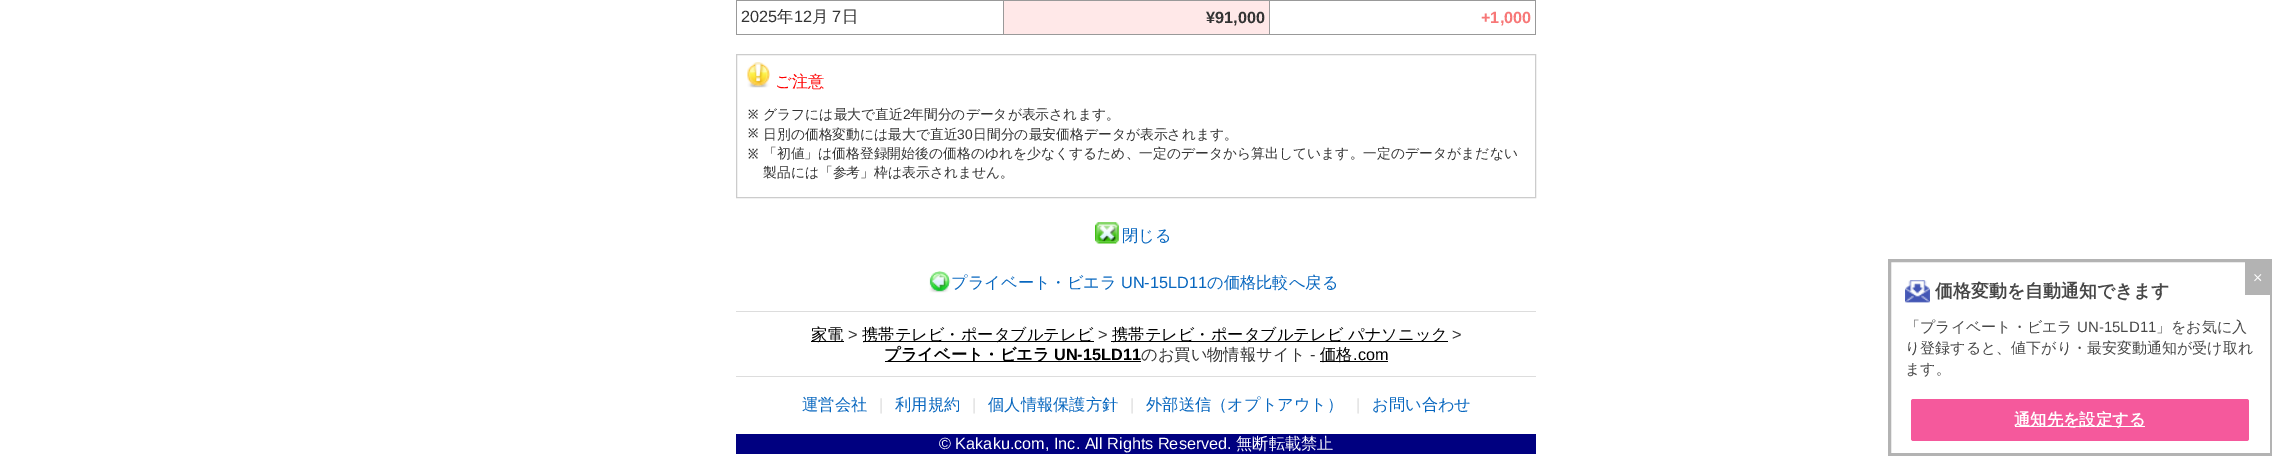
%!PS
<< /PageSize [2272 456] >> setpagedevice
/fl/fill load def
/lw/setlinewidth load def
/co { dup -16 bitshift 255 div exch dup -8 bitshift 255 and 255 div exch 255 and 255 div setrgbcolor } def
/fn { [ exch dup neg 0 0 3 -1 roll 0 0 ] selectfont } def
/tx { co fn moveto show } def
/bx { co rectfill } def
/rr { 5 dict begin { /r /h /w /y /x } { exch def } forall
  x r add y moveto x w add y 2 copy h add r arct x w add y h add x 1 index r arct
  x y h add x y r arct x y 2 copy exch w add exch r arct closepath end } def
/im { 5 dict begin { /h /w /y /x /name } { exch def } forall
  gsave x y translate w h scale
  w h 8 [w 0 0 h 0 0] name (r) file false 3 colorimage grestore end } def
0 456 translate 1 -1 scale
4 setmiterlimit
0 0 2272 456 16#FFFFFF bx
1535 0 1 35 16#999999 bx
1269 34 267 1 16#999999 bx
1269 0 1 35 16#999999 bx
1003 34 267 1 16#999999 bx
1003 0 1 35 16#999999 bx
736 34 268 1 16#999999 bx
736 0 1 35 16#999999 bx
736 0 800 1 16#999999 bx
1004 1 265 33 16#FFE8E8 bx
16#CCCCCC co
736.5 54.5 799 143 rectstroke
(media/1.raw) 747 62 23 26 im
(media/2.raw) 748 109 10 10 im
(media/3.raw) 748 128 10 10 im
(media/4.raw) 748 148 10 11 im
(media/5.raw) 1095 222 24 22 im
(media/6.raw) 929 271 22 22 im
736 311 800 1 16#DDDDDD bx
811 341 33 1 16#000000 bx
863 341 231 1 16#000000 bx
1111 341 337 1 16#000000 bx
885 361 256 1 16#000000 bx
1320 361 68 1 16#000000 bx
736 376 800 1 16#DDDDDD bx
736 434 800 20 16#000080 bx
16#B3B3B3 co
3 lw
1889.5 260.5 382 194 rectstroke
2245 262 25 33 16#B3B3B3 bx
(media/7.raw) 1905 280 25 23 im
16#F5599C co
1911 399 338 42 2.5 rr fl
2015 426 130 1 16#FFFFFF bx
(2025) 741 22 /LiberationSans-Regular 16.25 16#333333 tx
(年) 777 22 /WenQuanYiZenHei-Medium 16.25 16#333333 tx
(12) 794 22 /LiberationSans-Regular 16.25 16#333333 tx
(月) 812 22 /WenQuanYiZenHei-Medium 16.25 16#333333 tx
(7) 832 22 /LiberationSans-Regular 16.25 16#333333 tx
(日) 842 22 /WenQuanYiZenHei-Medium 16.25 16#333333 tx
(¥91,000) 1206 23 /LiberationSans-Bold 16.25 16#333333 tx
(+1,000) 1481 23 /LiberationSans-Bold 16.25 16#F77777 tx
(ご注意) 775 87 /WenQuanYiZenHei-Medium 16.25 16#FF0000 tx
(グラフには最大で直近) 763 119 /WenQuanYiZenHei-Medium 13.8 16#333333 tx
(2) 903 119 /LiberationSans-Regular 13.8 16#333333 tx
(年間分のデータが表示されます。) 910 119 /WenQuanYiZenHei-Medium 13.8 16#333333 tx
(日別の価格変動には最大で直近) 763 139 /WenQuanYiZenHei-Medium 13.8 16#333333 tx
(30) 957 139 /LiberationSans-Regular 13.8 16#333333 tx
(日間分の最安価格データが表示されます。) 973 139 /WenQuanYiZenHei-Medium 13.8 16#333333 tx
(「初値」は価格登録開始後の価格のゆれを少なくするため、一定のデータから算出しています。一定のデータがまだない) 763 158 /WenQuanYiZenHei-Medium 13.8 16#333333 tx
(製品には「参考」枠は表示されません。) 763 177 /WenQuanYiZenHei-Medium 13.8 16#333333 tx
(閉じる) 1122 241 /WenQuanYiZenHei-Medium 16.25 16#0867BF tx
(プライベート・ビエラ) 951 288 /WenQuanYiZenHei-Medium 16.25 16#0867BF tx
(UN-15LD11) 1121 288 /LiberationSans-Regular 16.25 16#0867BF tx
(の価格比較へ戻る) 1207 288 /WenQuanYiZenHei-Medium 16.25 16#0867BF tx
(家電) 811 340 /WenQuanYiZenHei-Medium 16.25 16#000000 tx
(>) 848 340 /LiberationSans-Regular 16.25 16#333333 tx
(携帯テレビ・ポータブルテレビ) 862 340 /WenQuanYiZenHei-Medium 16.25 16#000000 tx
(>) 1098 340 /LiberationSans-Regular 16.25 16#333333 tx
(携帯テレビ・ポータブルテレビ パナソニック) 1112 340 /WenQuanYiZenHei-Medium 16.25 16#000000 tx
(>) 1452 340 /LiberationSans-Regular 16.25 16#333333 tx
(プライベート・ビエラ) 884 360 /WenQuanYiZenHei-Bold 16.25 16#000000 tx
(UN-15LD11) 1054 360 /LiberationSans-Bold 16.25 16#000000 tx
(のお買い物情報サイト) 1141 360 /WenQuanYiZenHei-Medium 16.25 16#333333 tx
(-) 1310 360 /LiberationSans-Regular 16.25 16#333333 tx
(価格) 1320 360 /WenQuanYiZenHei-Medium 16.25 16#000000 tx
(.com) 1353 360 /LiberationSans-Regular 16.25 16#000000 tx
(運営会社) 802 410 /WenQuanYiZenHei-Medium 16.25 16#0867BF tx
(|) 879 410 /LiberationSans-Regular 16.25 16#DDDDDD tx
(利用規約) 895 410 /WenQuanYiZenHei-Medium 16.25 16#0867BF tx
(|) 972 410 /LiberationSans-Regular 16.25 16#DDDDDD tx
(個人情報保護方針) 988 410 /WenQuanYiZenHei-Medium 16.25 16#0867BF tx
(|) 1130 410 /LiberationSans-Regular 16.25 16#DDDDDD tx
(外部送信（オプトアウト）) 1146 410 /WenQuanYiZenHei-Medium 16.25 16#0867BF tx
(|) 1356 410 /LiberationSans-Regular 16.25 16#DDDDDD tx
(お問い合わせ) 1372 410 /WenQuanYiZenHei-Medium 16.25 16#0867BF tx
(© Kakaku.com, Inc. All Rights Reserved.) 939 449 /LiberationSans-Regular 16.25 16#FFFFFF tx
(無断転載禁止) 1236 449 /WenQuanYiZenHei-Medium 16.25 16#FFFFFF tx
(×) 2253 283 /LiberationSans-Regular 16.25 16#FFFFFF tx
(価格変動を自動通知できます) 1935 297 /WenQuanYiZenHei-Bold 17.9 16#474747 tx
(「プライベート・ビエラ) 1905 332 /WenQuanYiZenHei-Medium 15 16#474747 tx
(UN-15LD11) 2077 332 /LiberationSans-Regular 15 16#474747 tx
(」をお気に入) 2156 332 /WenQuanYiZenHei-Medium 15 16#474747 tx
(り登録すると、値下がり・最安変動通知が受け取れ) 1905 353 /WenQuanYiZenHei-Medium 15 16#474747 tx
(ます。) 1905 374 /WenQuanYiZenHei-Medium 15 16#474747 tx
(通知先を設定する) 2014 425 /WenQuanYiZenHei-Bold 16.25 16#FFFFFF tx
showpage
